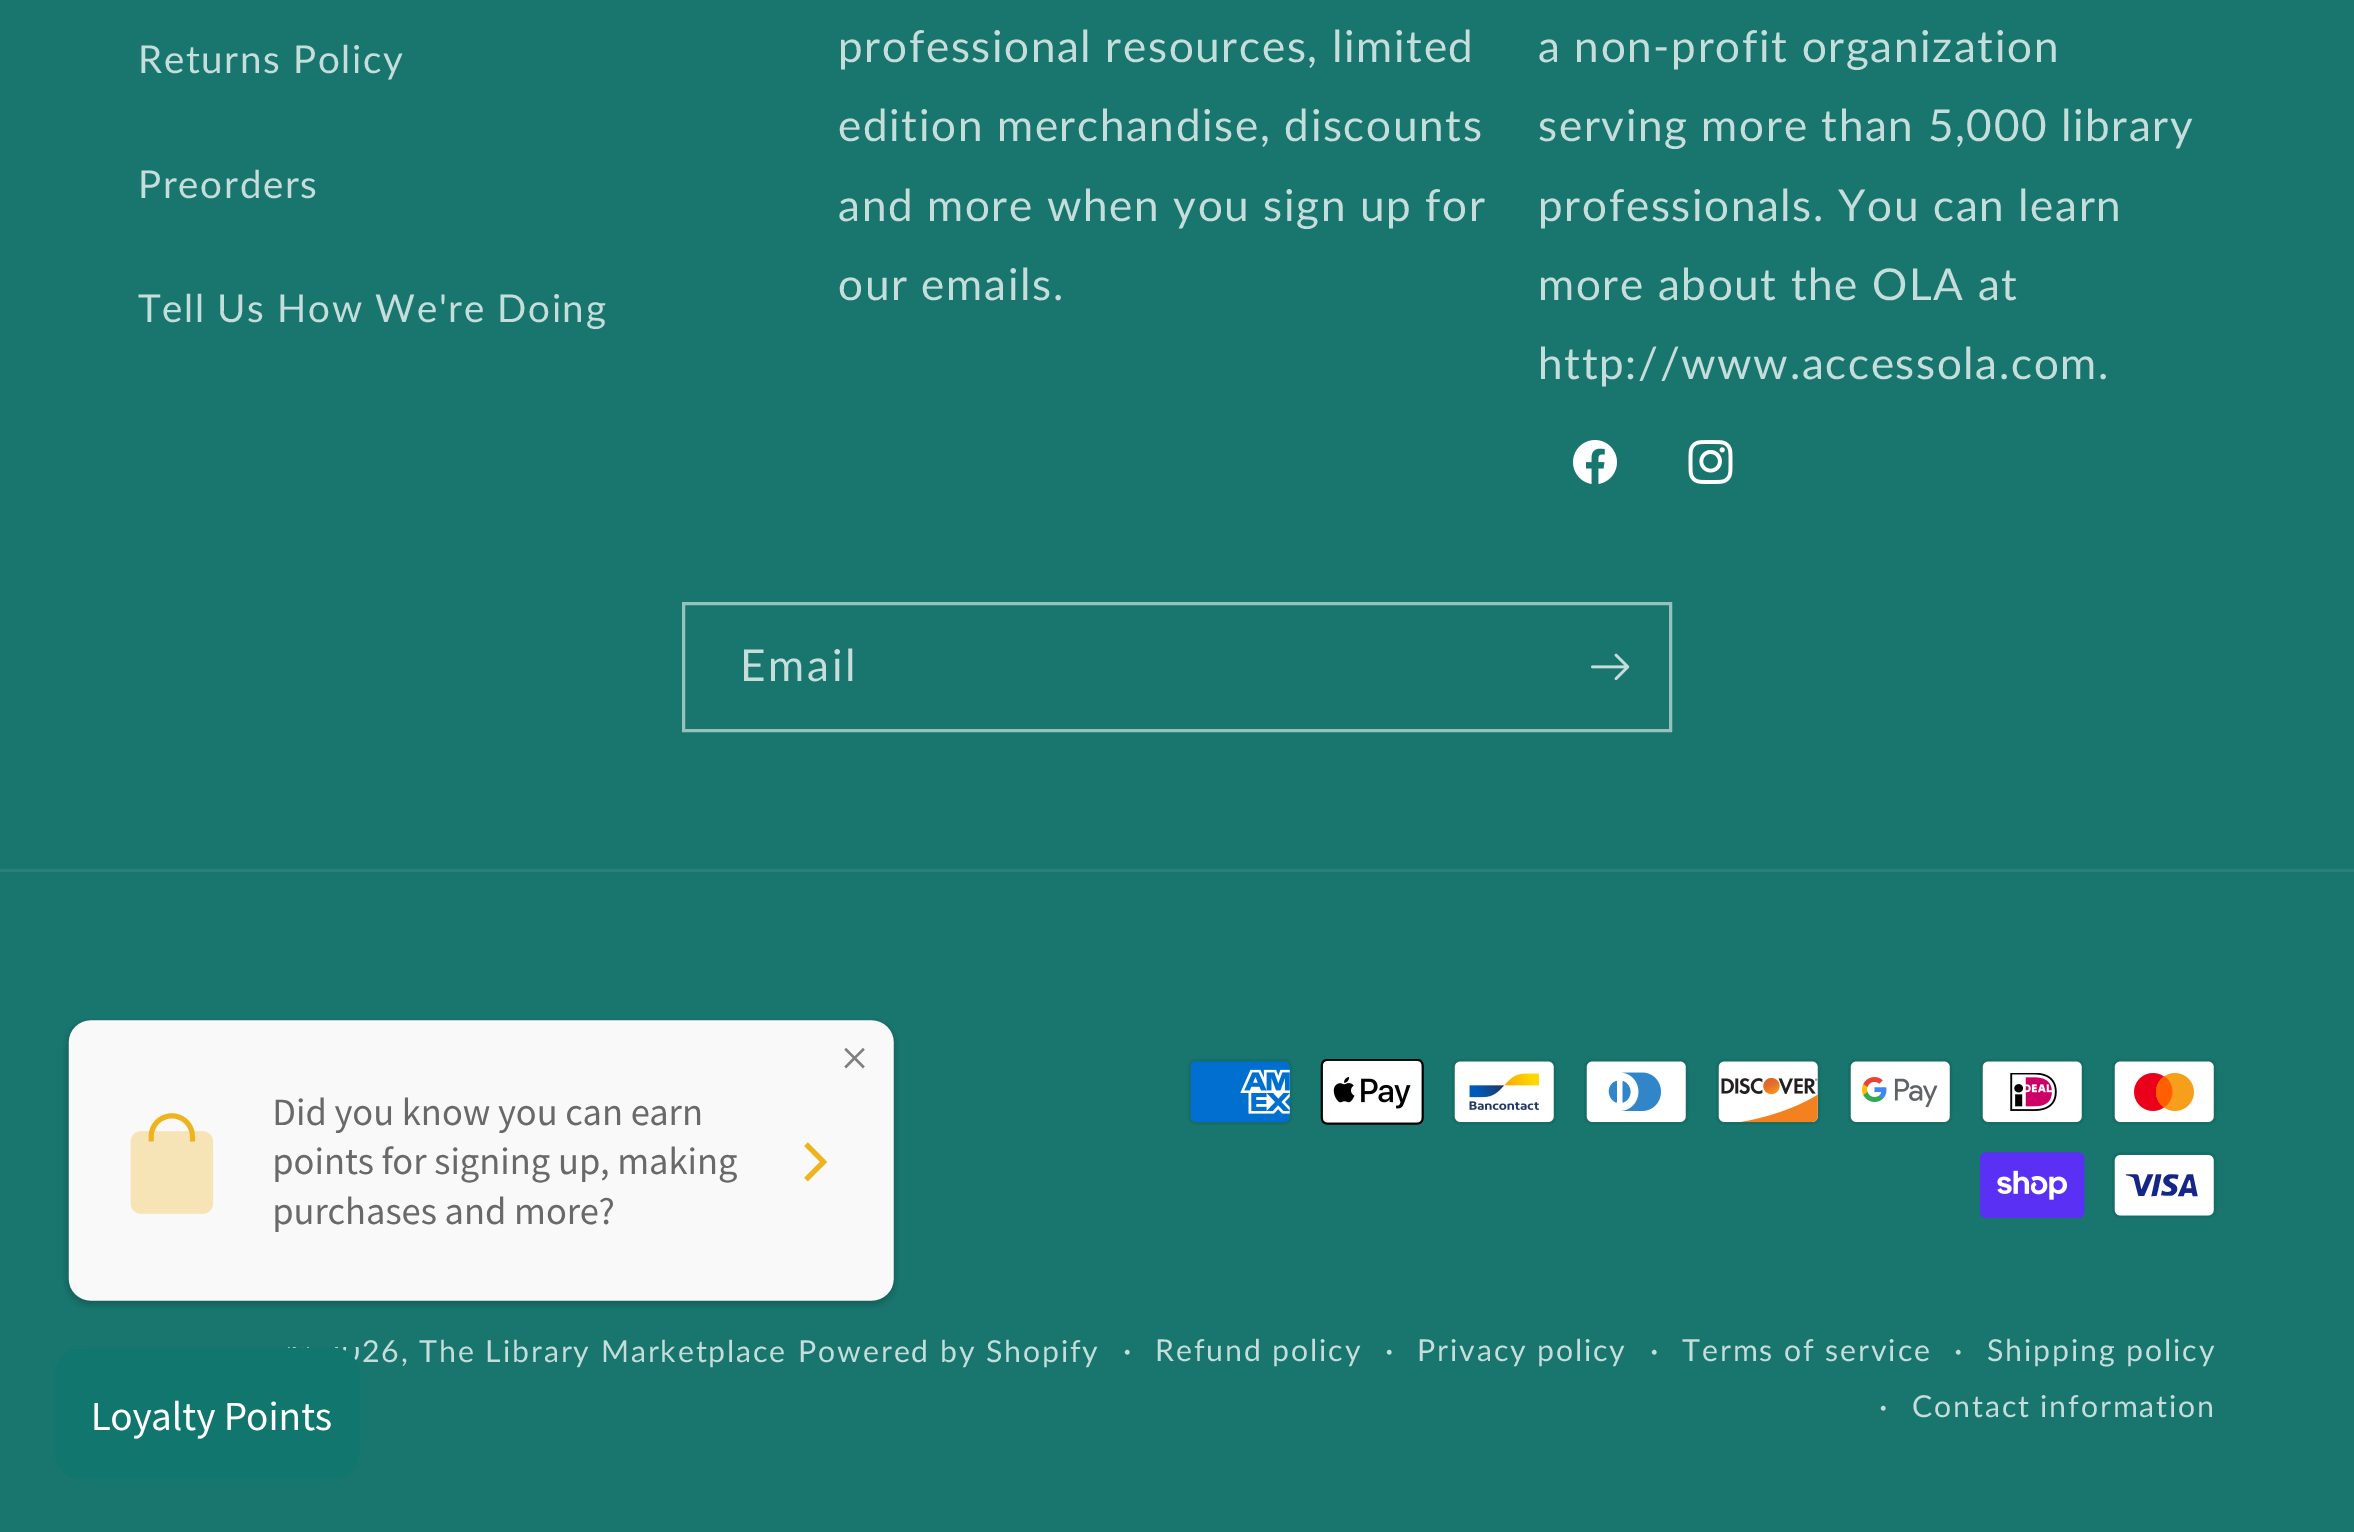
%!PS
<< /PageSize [2354 1532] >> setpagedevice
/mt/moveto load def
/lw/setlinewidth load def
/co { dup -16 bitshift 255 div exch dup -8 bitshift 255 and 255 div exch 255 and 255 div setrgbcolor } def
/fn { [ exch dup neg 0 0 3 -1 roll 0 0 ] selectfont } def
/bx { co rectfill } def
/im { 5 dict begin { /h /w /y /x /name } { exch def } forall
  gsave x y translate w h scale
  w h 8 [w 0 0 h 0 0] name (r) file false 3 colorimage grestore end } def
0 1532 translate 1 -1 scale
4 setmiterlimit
0 0 2354 1532 16#18766E bx
(media/1.raw) 1573 440 44 44 im
(media/2.raw) 1688 440 45 44 im
16#97C1BE co
3 lw
683.5 603.5 987 127 rectstroke
(media/3.raw) 1591 653 39 28 im
0 869 2354 3 16#2A817A bx
(media/4.raw) 1188 1059 105 66 im
(media/5.raw) 1320 1059 104 66 im
(media/6.raw) 1452 1059 105 66 im
(media/7.raw) 1584 1059 105 66 im
(media/8.raw) 1716 1059 105 66 im
(media/9.raw) 1848 1059 105 66 im
(media/10.raw) 1980 1059 105 66 im
(media/11.raw) 2112 1059 105 66 im
(media/12.raw) 1980 1152 105 66 im
(media/13.raw) 2112 1152 105 66 im
(media/14.raw) 63 1018 836 291 im
(media/15.raw) 55 1347 305 132 im
/Lato-Regular 38.5 fn
16#C5DDDB co
138 73 mt 1.65 0 (Returns Policy) ashow
138 198 mt 1.65 0 (Preorders) ashow
138 322 mt 1.65 0 (Tell Us How We're Doing) ashow
/Lato-Regular 44 fn
838 62 mt 1.65 0 (professional resources, limited) ashow
838 141 mt 1.65 0 (edition merchandise, discounts) ashow
838 221 mt 1.65 0 (and more when you sign up for) ashow
838 300 mt 1.65 0 (our emails.) ashow
1538 62 mt 1.65 0 (a non-profit organization) ashow
1538 141 mt 1.65 0 (serving more than 5,000 library) ashow
1538 221 mt 1.65 0 (professionals. You can learn) ashow
1538 300 mt 1.65 0 (more about the OLA at) ashow
1538 379 mt 1.65 0 (http://www.accessola.com.) ashow
740 681 mt 2.75 0 (Email) ashow
/Lato-Regular 30.25 fn
362 1362 mt 1.9 0 (26, The Library Marketplace) ashow
798 1362 mt 1.9 0 (Powered by Shopify) ashow
/Lato-Regular 33 fn
1123 1362 mt 1.9 0 (·) ashow
/Lato-Regular 30.25 fn
1155 1361 mt 1.9 0 (Refund policy) ashow
/Lato-Regular 33 fn
1385 1362 mt 1.9 0 (·) ashow
/Lato-Regular 30.25 fn
1417 1361 mt 1.9 0 (Privacy policy) ashow
/Lato-Regular 33 fn
1650 1362 mt 1.9 0 (·) ashow
/Lato-Regular 30.25 fn
1682 1361 mt 1.9 0 (Terms of service) ashow
/Lato-Regular 33 fn
1954 1362 mt 1.9 0 (·) ashow
/Lato-Regular 30.25 fn
1987 1361 mt 1.9 0 (Shipping policy) ashow
/Lato-Regular 33 fn
1879 1418 mt 1.9 0 (·) ashow
/Lato-Regular 30.25 fn
1912 1417 mt 1.9 0 (Contact information) ashow
showpage
